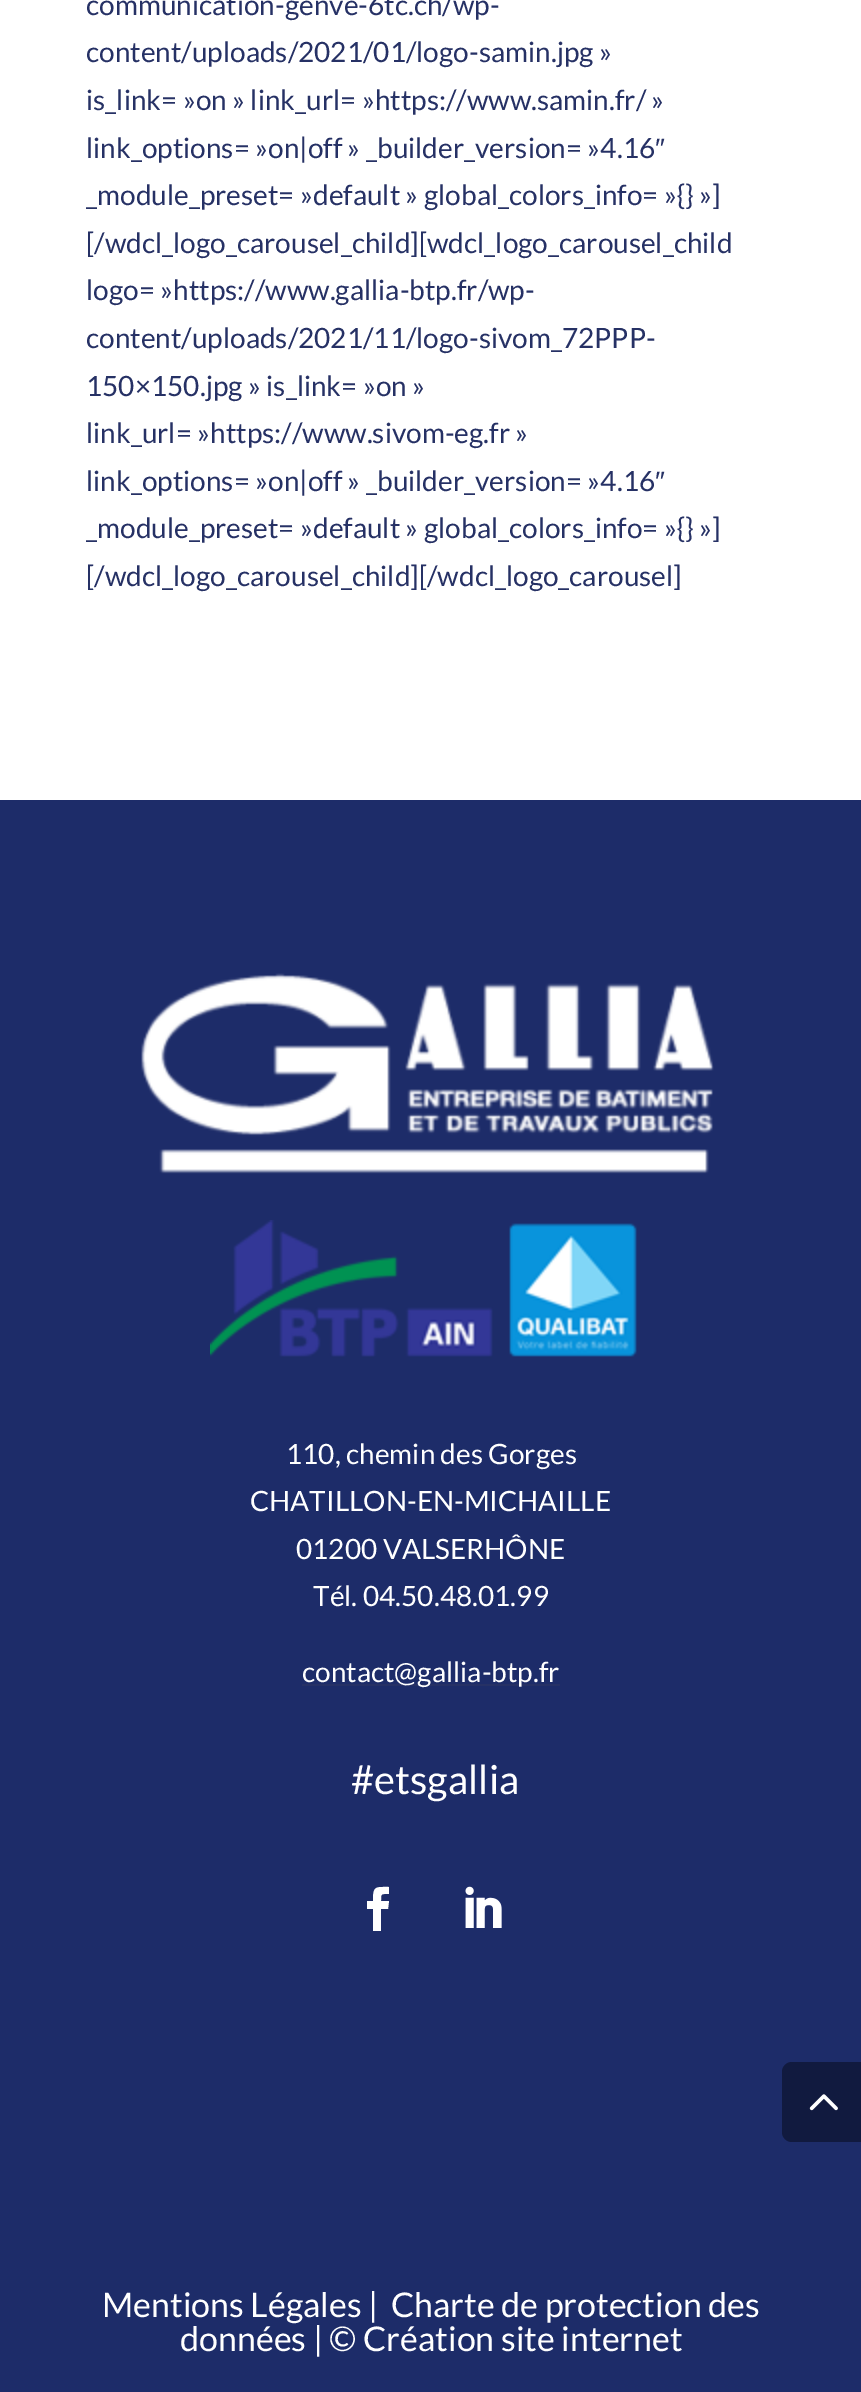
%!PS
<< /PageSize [861 2392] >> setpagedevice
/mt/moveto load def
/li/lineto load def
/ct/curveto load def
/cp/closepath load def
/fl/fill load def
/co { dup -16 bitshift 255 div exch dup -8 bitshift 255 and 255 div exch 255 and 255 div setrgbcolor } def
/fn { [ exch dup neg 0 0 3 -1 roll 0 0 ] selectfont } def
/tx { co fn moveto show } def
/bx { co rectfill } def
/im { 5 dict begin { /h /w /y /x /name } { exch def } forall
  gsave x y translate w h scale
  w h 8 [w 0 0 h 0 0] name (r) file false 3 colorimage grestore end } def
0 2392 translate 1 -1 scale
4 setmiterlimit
0 0 861 2392 16#FFFFFF bx
0 800 861 1592 16#1D2C69 bx
(media/1.raw) 141 973 573 201 im
(media/2.raw) 210 1220 427 137 im
302 1684 258 2 16#263165 bx
16#FFFFFF co
373 1931 mt 381 1931 li 381 1909 li 388 1909 li 389 1901 li 381 1901 li 381 1893 381 1894 389 1894 ct 389 1887 li 375 1887 373 1886 373 1901 ct 367 1901 li 367 1909 li 373 1909 li cp fl
(media/3.raw) 465 1886 37 42 im
16#111A3F co
792 2062 mt 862 2062 li 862 2142 li 792 2142 li 786.5 2142 782 2137.5 782 2132 ct 782 2072 li 782 2066.5 786.5 2062 792 2062 ct cp fl
(media/4.raw) 809 2094 29 17 im
(communication-genve-6tc.ch/wp-) 86 15 /Lato-Regular 28 16#263165 tx
(content/uploads/2021/01/logo-samin.jpg ») 86 62 /Lato-Regular 28 16#263165 tx
(is_link= »on » link_url= »https://www.samin.fr/ ») 86 110 /Lato-Regular 28 16#263165 tx
(link_options= »on|off » _builder_version= »4.16) 86 158 /Lato-Regular 28 16#263165 tx
(″) 655 158 /LiberationSans-Regular 28 16#263165 tx
(_module_preset= »default » global_colors_info= »{} »]) 86 205 /Lato-Regular 28 16#263165 tx
([/wdcl_logo_carousel_child][wdcl_logo_carousel_child) 86 253 /Lato-Regular 28 16#263165 tx
(logo= »https://www.gallia-btp.fr/wp-) 86 300 /Lato-Regular 28 16#263165 tx
(content/uploads/2021/11/logo-sivom_72PPP-) 86 348 /Lato-Regular 28 16#263165 tx
(150×150.jpg » is_link= »on ») 86 396 /Lato-Regular 28 16#263165 tx
(link_url= »https://www.sivom-eg.fr ») 86 443 /Lato-Regular 28 16#263165 tx
(link_options= »on|off » _builder_version= »4.16) 86 491 /Lato-Regular 28 16#263165 tx
(″) 655 491 /LiberationSans-Regular 28 16#263165 tx
(_module_preset= »default » global_colors_info= »{} »]) 86 538 /Lato-Regular 28 16#263165 tx
([/wdcl_logo_carousel_child][/wdcl_logo_carousel]) 86 586 /Lato-Regular 28 16#263165 tx
(110, chemin des Gorges) 286 1464 /Lato-Regular 28 16#FFFFFF tx
(CHATILLON-EN-MICHAILLE) 250 1511 /Lato-Regular 28 16#FFFFFF tx
(01200 VALSERHÔNE) 296 1559 /Lato-Regular 28 16#FFFFFF tx
(Tél. 04.50.48.01.99) 313 1606 /Lato-Regular 28 16#FFFFFF tx
(contact@gallia-btp.fr) 302 1682 /Lato-Regular 28 16#FFFFFF tx
(#etsgallia) 351 1794 /Lato-Regular 40 16#FFFFFF tx
(Mentions Légales |) 102 2317 /Lato-Regular 34 16#FFFFFF tx
(Charte de protection des) 391 2317 /Lato-Regular 34 16#FFFFFF tx
(données | © Création site internet) 180 2351 /Lato-Regular 34 16#FFFFFF tx
showpage
